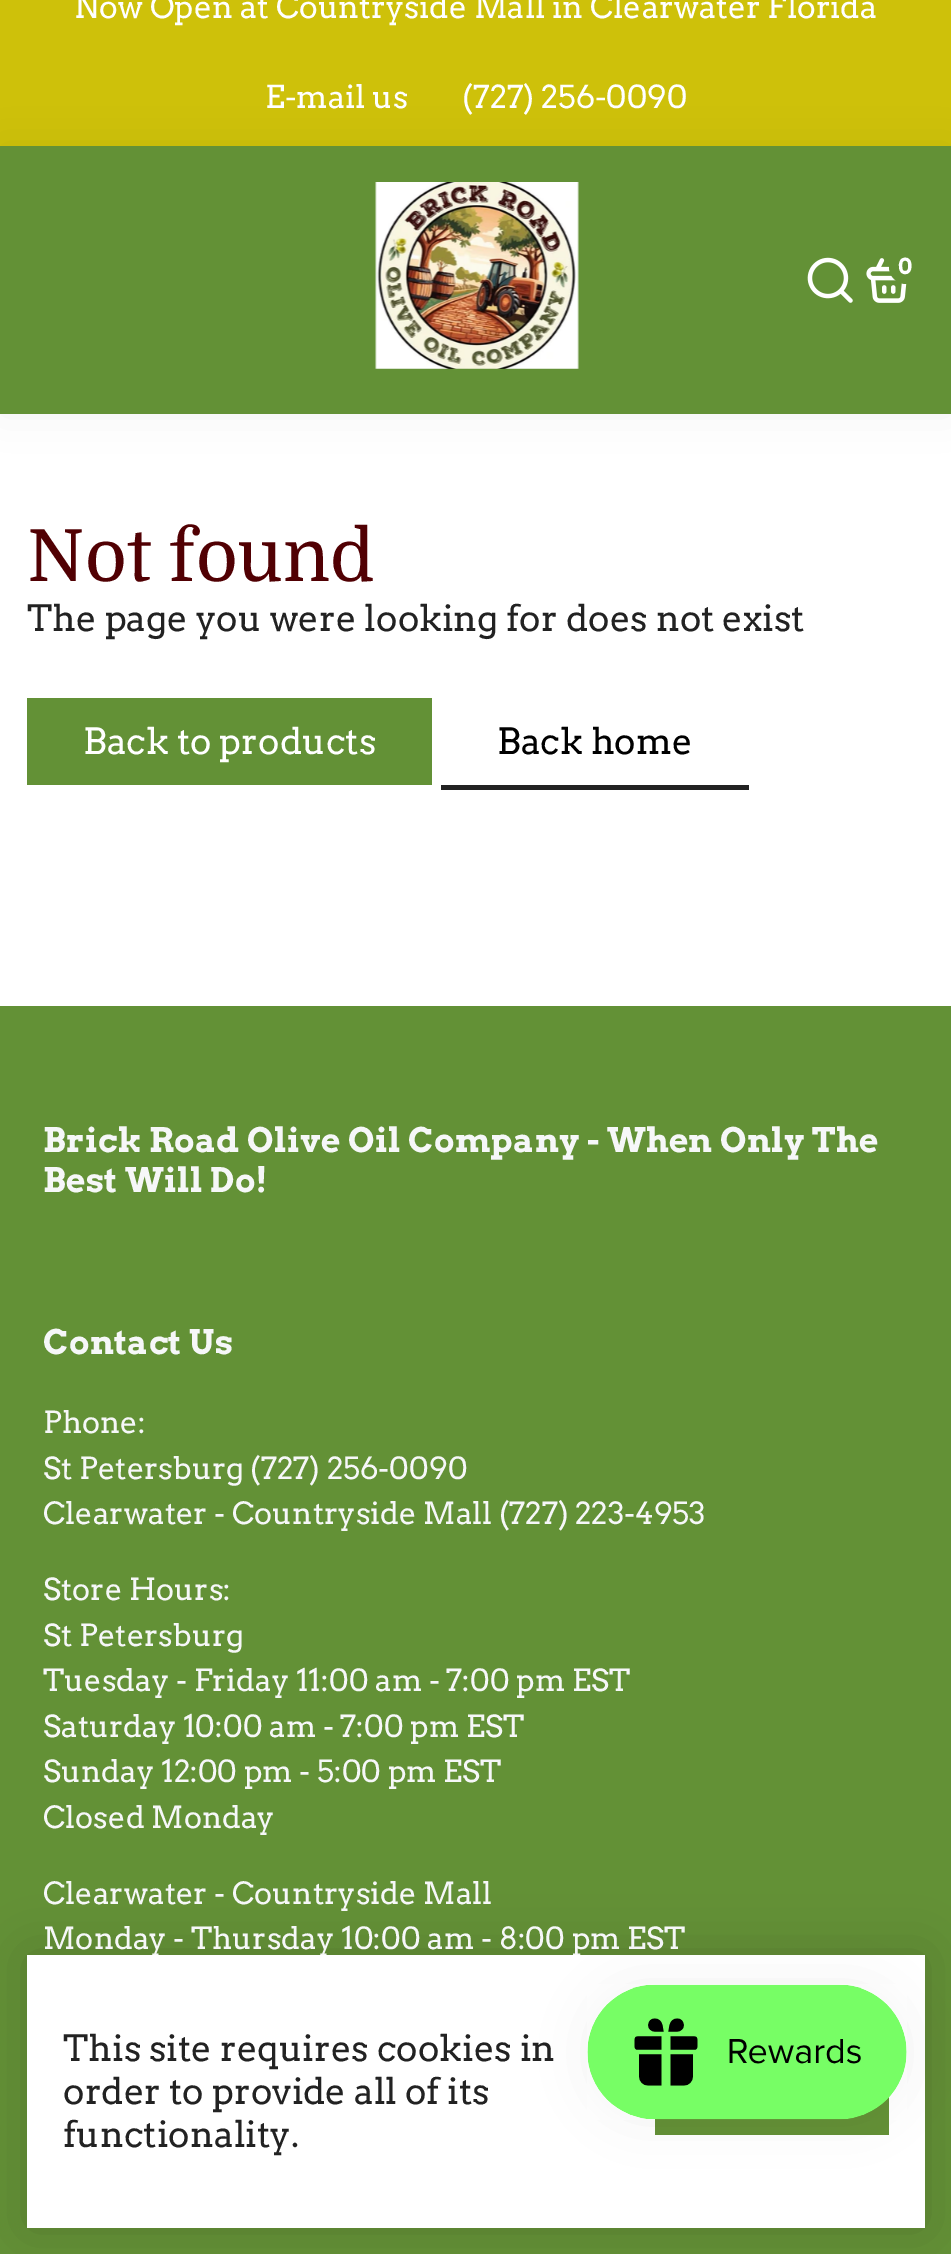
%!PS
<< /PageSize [951 2254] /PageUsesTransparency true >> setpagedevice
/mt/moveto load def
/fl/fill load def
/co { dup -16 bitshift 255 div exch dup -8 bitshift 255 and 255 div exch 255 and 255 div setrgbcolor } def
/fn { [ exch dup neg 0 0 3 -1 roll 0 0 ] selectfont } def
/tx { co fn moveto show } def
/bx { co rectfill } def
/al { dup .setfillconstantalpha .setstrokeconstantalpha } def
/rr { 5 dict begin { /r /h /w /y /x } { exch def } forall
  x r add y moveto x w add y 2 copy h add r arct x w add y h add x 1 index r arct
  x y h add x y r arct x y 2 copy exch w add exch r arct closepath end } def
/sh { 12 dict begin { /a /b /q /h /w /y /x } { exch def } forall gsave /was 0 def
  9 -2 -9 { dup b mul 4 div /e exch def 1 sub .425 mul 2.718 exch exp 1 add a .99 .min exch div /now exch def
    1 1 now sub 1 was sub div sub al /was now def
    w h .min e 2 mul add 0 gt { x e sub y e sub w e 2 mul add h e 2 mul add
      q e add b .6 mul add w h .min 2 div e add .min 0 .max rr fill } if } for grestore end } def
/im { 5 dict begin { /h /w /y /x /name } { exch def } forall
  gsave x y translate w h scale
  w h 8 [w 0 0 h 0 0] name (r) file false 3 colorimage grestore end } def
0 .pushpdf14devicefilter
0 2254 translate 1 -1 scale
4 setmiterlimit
0 0 951 2254 16#FFFFFF bx
0 0 951 146 16#CEC10A bx
16#000000 co
0 146 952 268 0 22.5 .06 sh
0 146 951 268 16#639136 bx
(media/1.raw) 375 182 204 187 im
(media/2.raw) 807 257 46 46 im
(media/3.raw) 866 258 41 45 im
889 248 34 36 17 rr fl
27 698 405 87 16#639136 bx
441 785 308 5 16#222222 bx
0 1006 951 1248 16#639136 bx
16#000000 co
27 1955 898 273 0 27 .16 sh
(Now Open at Countryside Mall in Clearwater Florida) 74 18 /Arvo-Regular 31.5 16#FFFFFF tx
(E-mail us) 265 108 /Arvo-Regular 31.5 16#FFFFFF tx
(\(727\) 256-0090) 462 108 /Arvo-Regular 31.5 16#FFFFFF tx
(0) 898 274 /Arvo-Bold 22 16#FFFFFF tx
(Not found) 27 581 /Domine-Regular 72 16#510003 tx
(The page you were looking for does not exist) 27 631 /Arvo-Regular 36 16#222222 tx
(Back to products) 83 754 /Arvo-Regular 36 16#FFFFFF tx
(Back home) 497 754 /Arvo-Regular 36 16#000000 tx
/Arvo-Bold 33.75 fn
16#F6F7F8 co
43 1152 mt .25 0 (Brick Road Olive Oil Company - When Only The) ashow
43 1192 mt .25 0 (Best Will Do!) ashow
43 1354 mt .25 0 (Contact Us) ashow
(Phone:) 43 1433 /Arvo-Regular 30.4 16#F6F7F8 tx
(St Petersburg \(727\) 256-0090) 43 1479 /Arvo-Regular 30.4 16#F6F7F8 tx
(Clearwater - Countryside Mall \(727\) 223-4953) 43 1524 /Arvo-Regular 30.4 16#F6F7F8 tx
(Store Hours:) 43 1600 /Arvo-Regular 30.4 16#F6F7F8 tx
(St Petersburg) 43 1646 /Arvo-Regular 30.4 16#F6F7F8 tx
(Tuesday - Friday 11:00 am - 7:00 pm EST) 43 1691 /Arvo-Regular 30.4 16#F6F7F8 tx
(Saturday 10:00 am - 7:00 pm EST) 43 1737 /Arvo-Regular 30.4 16#F6F7F8 tx
(Sunday 12:00 pm - 5:00 pm EST) 43 1782 /Arvo-Regular 30.4 16#F6F7F8 tx
(Closed Monday) 43 1828 /Arvo-Regular 30.4 16#F6F7F8 tx
(Clearwater - Countryside Mall) 43 1904 /Arvo-Regular 30.4 16#F6F7F8 tx
(Monday - Thursday 10:00 am - 8:00 pm EST) 43 1949 /Arvo-Regular 30.4 16#F6F7F8 tx
27 1955 898 273 16#FFFFFF bx
(This site requires cookies in) 63 2061 /Arvo-Regular 36 16#222222 tx
(order to provide all of its) 63 2104 /Arvo-Regular 36 16#222222 tx
(functionality.) 63 2147 /Arvo-Regular 36 16#222222 tx
655 2097 234 38 16#639136 bx
16#000000 co
587 1985 320 135 67.5 28 .05 sh
(media/4.raw) 587 1984 320 136 im
.poppdf14devicefilter showpage
